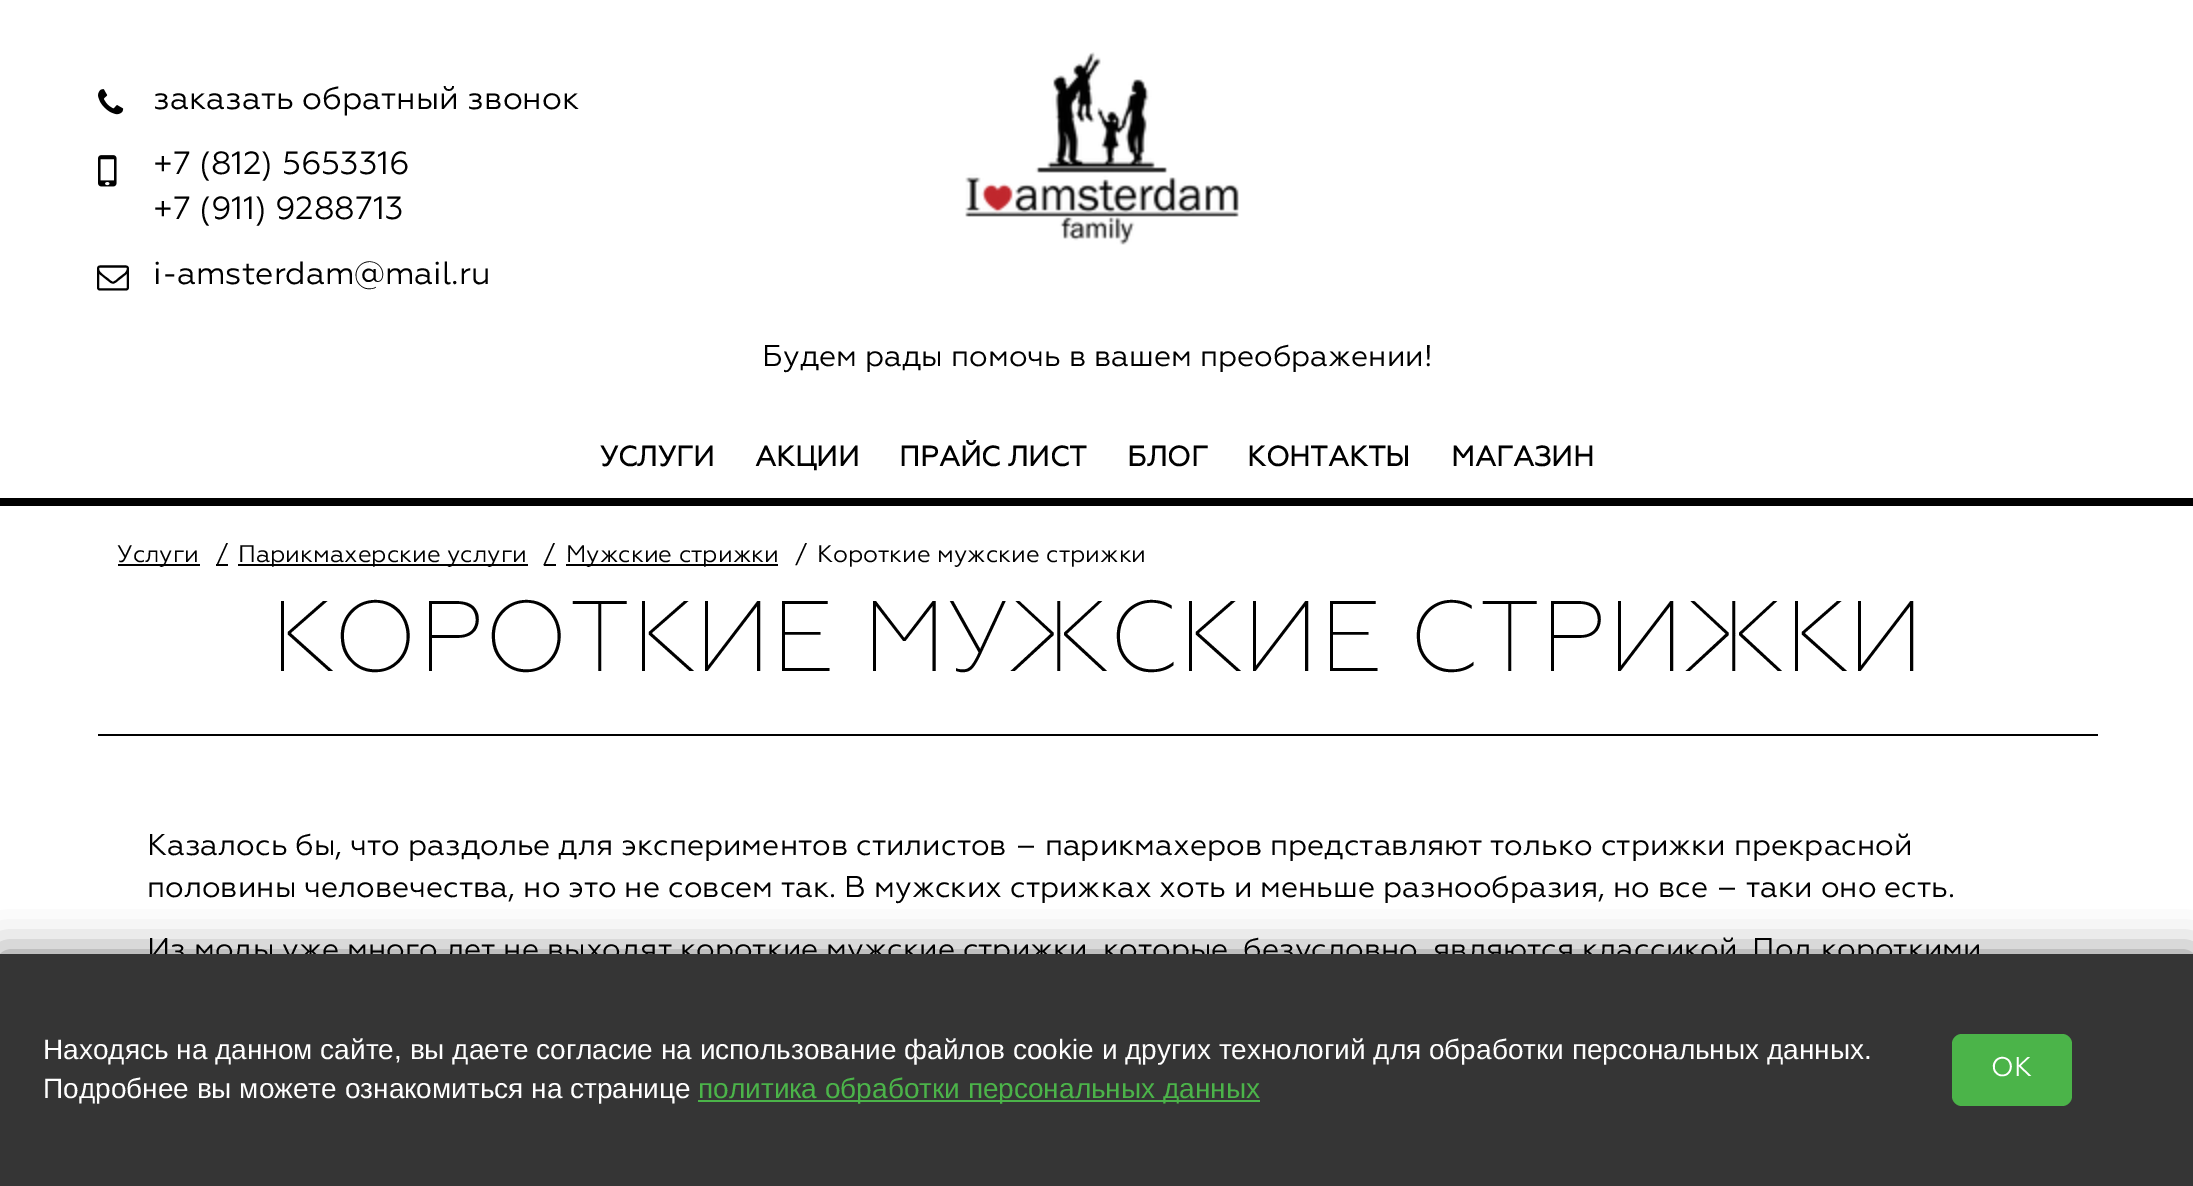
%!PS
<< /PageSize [2193 1186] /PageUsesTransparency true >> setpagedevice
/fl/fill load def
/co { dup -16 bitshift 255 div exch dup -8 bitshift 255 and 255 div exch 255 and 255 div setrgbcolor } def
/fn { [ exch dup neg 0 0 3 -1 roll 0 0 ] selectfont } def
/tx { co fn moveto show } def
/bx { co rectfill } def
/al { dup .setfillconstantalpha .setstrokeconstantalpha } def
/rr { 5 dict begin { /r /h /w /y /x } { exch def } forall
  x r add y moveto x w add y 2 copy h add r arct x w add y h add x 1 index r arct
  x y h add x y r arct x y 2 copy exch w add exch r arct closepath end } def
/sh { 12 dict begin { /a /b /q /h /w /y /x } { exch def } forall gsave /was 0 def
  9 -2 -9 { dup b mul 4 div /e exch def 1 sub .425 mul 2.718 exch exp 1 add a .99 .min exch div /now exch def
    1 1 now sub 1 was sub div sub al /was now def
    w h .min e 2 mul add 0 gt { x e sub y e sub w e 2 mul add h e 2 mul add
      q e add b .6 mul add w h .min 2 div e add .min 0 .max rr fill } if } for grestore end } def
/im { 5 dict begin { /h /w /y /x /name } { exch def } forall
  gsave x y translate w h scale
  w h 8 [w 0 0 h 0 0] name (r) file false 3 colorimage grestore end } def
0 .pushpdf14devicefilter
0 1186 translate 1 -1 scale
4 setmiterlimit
0 0 2193 1186 16#FFFFFF bx
0 498 2193 8 16#000000 bx
(media/1.raw) 98 89 26 26 im
(media/2.raw) 98 155 19 32 im
(media/3.raw) 965 52 274 193 im
98 734 2000 2 16#000000 bx
118 564 82 2 16#000000 bx
216 564 12 2 16#000000 bx
238 564 290 2 16#000000 bx
544 564 12 2 16#000000 bx
566 564 212 2 16#000000 bx
0 954 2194 232 0 20 .5 sh
(заказать обратный звонок) 153 109 /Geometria-Regular 32 16#000000 tx
(+7 \(812\) 5653316) 153 174 /Geometria-Regular 32 16#000000 tx
(+7 \(911\) 9288713) 153 219 /Geometria-Regular 32 16#000000 tx
(@) 97 288 /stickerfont-Regular 32 16#000000 tx
(i-amsterdam@mail.ru) 153 284 /Geometria-Regular 32 16#000000 tx
(Будем рады помочь в вашем преображении!) 762 366 /Geometria-Regular 30 16#000000 tx
(УСЛУГИ) 600 466 /Geometria-Bold 28 16#000000 tx
(АКЦИИ) 755 466 /Geometria-Bold 28 16#000000 tx
(ПРАЙС ЛИСТ) 899 466 /Geometria-Bold 28 16#000000 tx
(БЛОГ) 1127 466 /Geometria-Bold 28 16#000000 tx
(КОНТАКТЫ) 1247 466 /Geometria-Bold 28 16#000000 tx
(МАГАЗИН) 1451 466 /Geometria-Bold 28 16#000000 tx
(Услуги) 117 562 /Geometria-Regular 24 16#000000 tx
(/) 216 562 /Geometria-Regular 24 16#000000 tx
(Парикмахерские услуги) 238 562 /Geometria-Regular 24 16#000000 tx
(/) 543 562 /Geometria-Regular 24 16#000000 tx
(Мужские стрижки) 566 562 /Geometria-Regular 24 16#000000 tx
(/) 795 562 /Geometria-Regular 24 16#000000 tx
(Короткие мужские стрижки) 817 562 /Geometria-Regular 24 16#000000 tx
(КОРОТКИЕ МУЖСКИЕ СТРИЖКИ) 270 671 /Geometria-ExtraLight 100 16#000000 tx
(Казалось бы, что раздолье для экспериментов стилистов – парикмахеров представляют только стрижки прекрасной) 147 855 /Geometria-Regular 30 16#000000 tx
(половины человечества, но это не совсем так. В мужских стрижках хоть и меньше разнообразия, но все – таки оно есть.) 147 897 /Geometria-Regular 30 16#000000 tx
(Из моды уже много лет не выходят короткие мужские стрижки, которые, безусловно, являются классикой. Под короткими) 147 959 /Geometria-Regular 30 16#000000 tx
0 954 2193 232 16#353535 bx
(Находясь на данном сайте, вы даете согласие на использование файлов cookie и других технологий для обработки персональных данных.) 43 1059 /LiberationSans-Regular 28 16#FFFFFF tx
(Подробнее вы можете ознакомиться на странице) 43 1098 /LiberationSans-Regular 28 16#FFFFFF tx
698 1100 562 2 16#4BB449 bx
(политика обработки персональных данных) 698 1098 /LiberationSans-Regular 28 16#4BB449 tx
1952 1034 120 72 10 rr fl
(OK) 1991 1076 /Geometria-Regular 27 16#FFFFFF tx
.poppdf14devicefilter showpage
